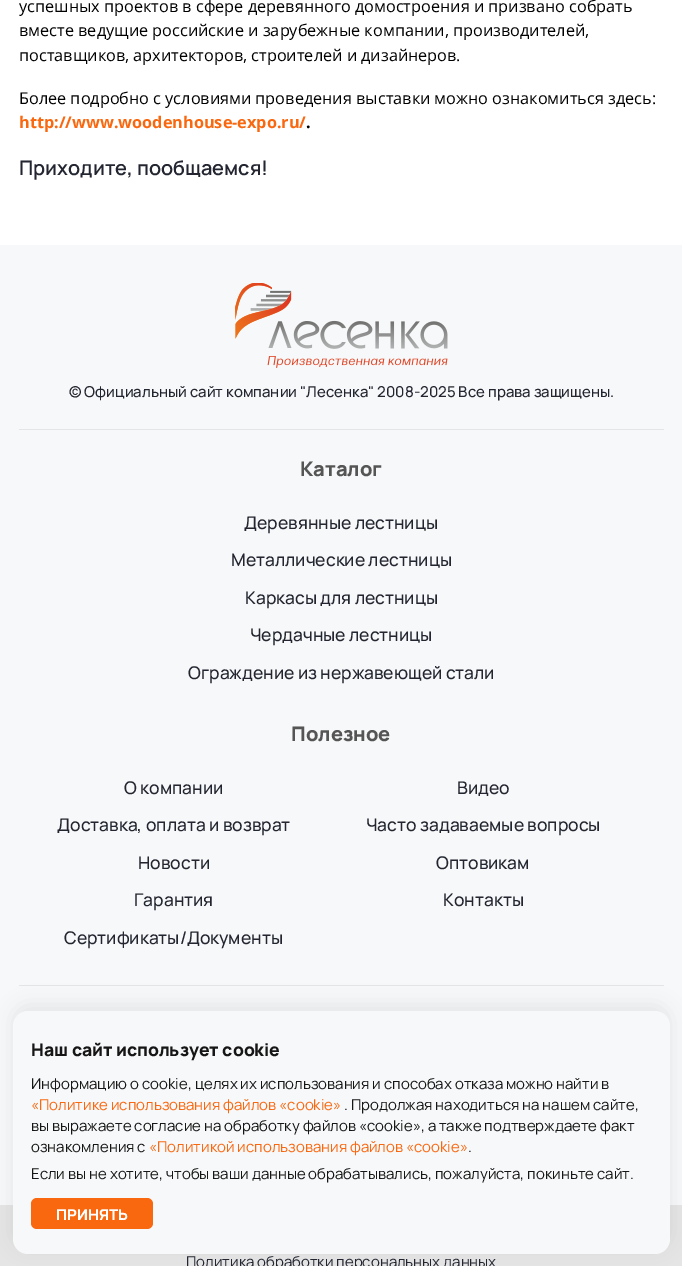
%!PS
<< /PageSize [682 1266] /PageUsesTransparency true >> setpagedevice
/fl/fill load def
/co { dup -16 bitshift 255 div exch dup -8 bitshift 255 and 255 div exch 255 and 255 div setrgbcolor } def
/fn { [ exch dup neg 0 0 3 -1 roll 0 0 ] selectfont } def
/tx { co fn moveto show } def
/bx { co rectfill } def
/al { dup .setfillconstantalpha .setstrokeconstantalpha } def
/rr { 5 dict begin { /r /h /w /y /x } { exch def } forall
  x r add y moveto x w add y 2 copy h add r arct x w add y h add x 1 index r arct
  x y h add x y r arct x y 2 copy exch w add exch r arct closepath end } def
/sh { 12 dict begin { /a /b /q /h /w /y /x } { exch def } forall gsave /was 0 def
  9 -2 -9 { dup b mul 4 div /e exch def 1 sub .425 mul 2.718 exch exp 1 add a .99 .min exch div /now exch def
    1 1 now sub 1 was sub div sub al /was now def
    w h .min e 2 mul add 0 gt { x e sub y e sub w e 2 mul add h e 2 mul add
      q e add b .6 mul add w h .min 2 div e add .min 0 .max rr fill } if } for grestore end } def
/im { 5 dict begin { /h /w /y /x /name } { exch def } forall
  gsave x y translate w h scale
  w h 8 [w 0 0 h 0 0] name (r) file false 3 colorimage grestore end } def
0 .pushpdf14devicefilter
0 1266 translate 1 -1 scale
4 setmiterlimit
0 0 682 1266 16#FFFFFF bx
0 245 682 960 16#F7F8F9 bx
(media/1.raw) 235 283 213 85 im
19 429 645 1 16#E5E5E6 bx
19 985 645 1 16#E5E5E6 bx
0 1205 682 61 16#E5E5E6 bx
16#3E3E3E co
13 1005 657 243 15 9.5 .1 sh
16#F7F8F9 co
13 1011 657 243 15 rr fl
16#F9670F co
31 1198 122 31 6 rr fl
(успешных проектов в сфере деревянного домостроения и призвано собрать) 19 12 /OpenSans-Regular 16.25 16#000000 tx
(вместе ведущие российские и зарубежные компании, производителей,) 19 36 /OpenSans-Regular 16.25 16#000000 tx
(поставщиков, архитекторов, строителей и дизайнеров.) 19 61 /OpenSans-Regular 16.25 16#000000 tx
(Более подробно с условиями проведения выставки можно ознакомиться здесь:) 19 104 /OpenSans-Regular 16.25 16#000000 tx
(http://www.woodenhouse-expo.ru/) 19 128 /OpenSans-Bold 16.25 16#F9670F tx
(.) 306 128 /OpenSans-Bold 16.25 16#000000 tx
(Приходите, пообщаемся!) 19 175 /Manrope-SemiBold 20 16#232630 tx
(© Официальный сайт компании "Лесенка" 2008-2025 Все права защищены.) 69 397 /Manrope-Medium 15 16#232630 tx
(Каталог) 300 476 /Manrope-ExtraBold 20 16#555555 tx
(Деревянные лестницы) 244 529 /Manrope-Medium 17.5 16#232630 tx
(Металлические лестницы) 231 566 /Manrope-Medium 17.5 16#232630 tx
(Каркасы для лестницы) 245 604 /Manrope-Medium 17.5 16#232630 tx
(Чердачные лестницы) 250 641 /Manrope-Medium 17.5 16#232630 tx
(Ограждение из нержавеющей стали) 188 679 /Manrope-Medium 17.5 16#232630 tx
(Полезное) 291 741 /Manrope-ExtraBold 20 16#555555 tx
(О компании) 124 794 /Manrope-Medium 17.5 16#232630 tx
(Доставка, оплата и возврат) 57 831 /Manrope-Medium 17.5 16#232630 tx
(Новости) 138 869 /Manrope-Medium 17.5 16#232630 tx
(Гарантия) 134 906 /Manrope-Medium 17.5 16#232630 tx
(Сертификаты/Документы) 64 944 /Manrope-Medium 17.5 16#232630 tx
(Видео) 457 794 /Manrope-Medium 17.5 16#232630 tx
(Часто задаваемые вопросы) 366 831 /Manrope-Medium 17.5 16#232630 tx
(Оптовикам) 436 869 /Manrope-Medium 17.5 16#232630 tx
(Контакты) 443 906 /Manrope-Medium 17.5 16#232630 tx
(Политика обработки персональных данных) 186 1267 /Manrope-Regular 15 16#232630 tx
(Наш сайт использует cookie) 31 1056 /Manrope-ExtraBold 17.5 16#161616 tx
(Информацию о cookie, целях их использования и способах отказа можно найти в) 31 1089 /Manrope-Regular 15 16#161616 tx
(«Политике использования файлов «cookie») 31 1110 /Manrope-Regular 15 16#F9670F tx
(. Продолжая находиться на нашем сайте,) 344 1110 /Manrope-Regular 15 16#161616 tx
(вы выражаете согласие на обработку файлов «cookie», а также подтверждаете факт) 31 1131 /Manrope-Regular 15 16#161616 tx
(ознакомления с) 31 1152 /Manrope-Regular 15 16#161616 tx
(«Политикой использования файлов «cookie») 149 1152 /Manrope-Regular 15 16#F9670F tx
(.) 468 1152 /Manrope-Regular 15 16#161616 tx
(Если вы не хотите, чтобы ваши данные обрабатывались, пожалуйста, покиньте сайт.) 31 1179 /Manrope-Regular 15 16#161616 tx
(ПРИНЯТЬ) 56 1220 /Manrope-ExtraBold 15 16#FFFFFF tx
.poppdf14devicefilter showpage
